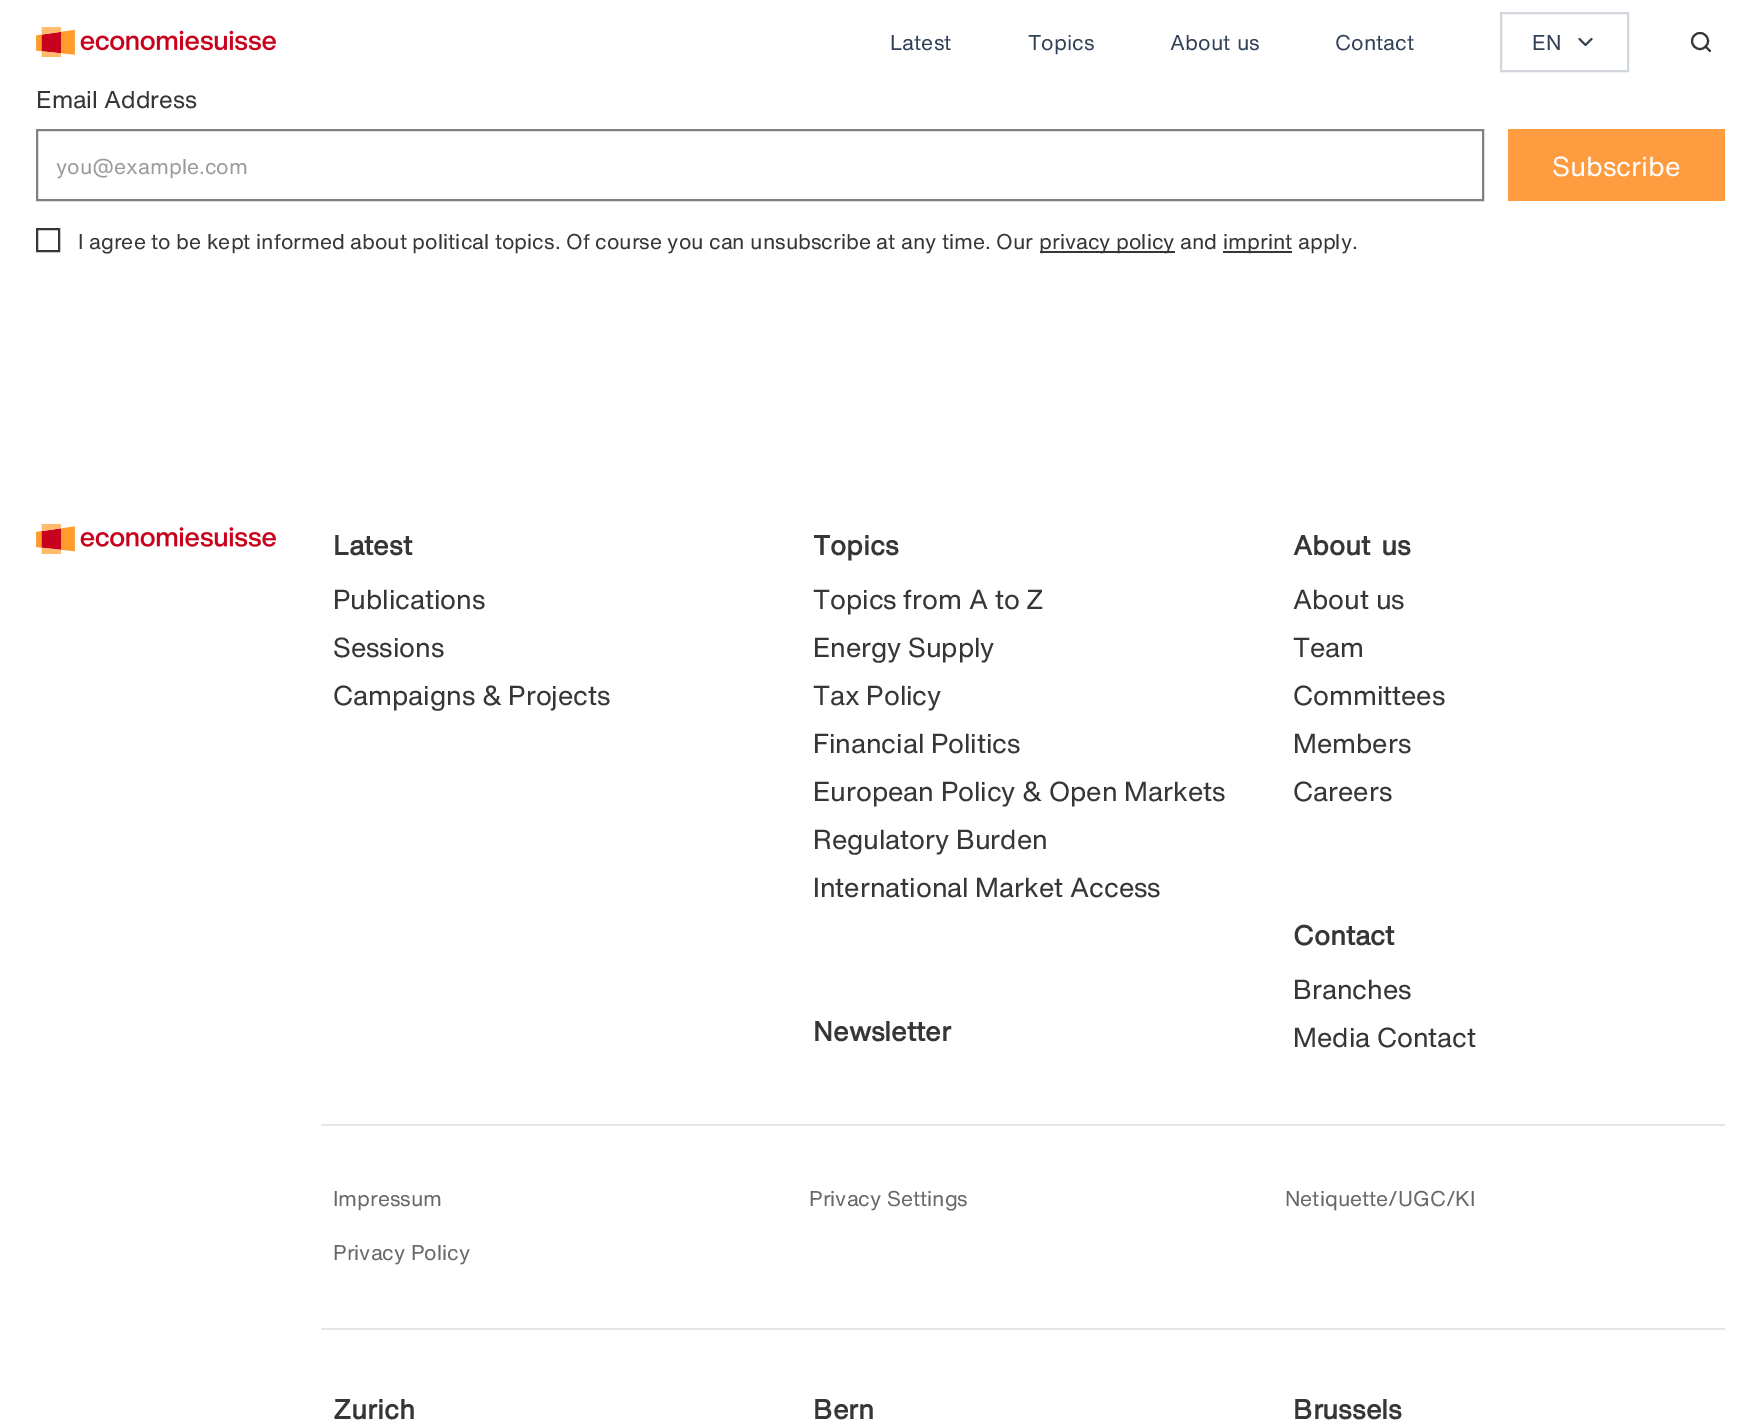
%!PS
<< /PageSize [1761 1421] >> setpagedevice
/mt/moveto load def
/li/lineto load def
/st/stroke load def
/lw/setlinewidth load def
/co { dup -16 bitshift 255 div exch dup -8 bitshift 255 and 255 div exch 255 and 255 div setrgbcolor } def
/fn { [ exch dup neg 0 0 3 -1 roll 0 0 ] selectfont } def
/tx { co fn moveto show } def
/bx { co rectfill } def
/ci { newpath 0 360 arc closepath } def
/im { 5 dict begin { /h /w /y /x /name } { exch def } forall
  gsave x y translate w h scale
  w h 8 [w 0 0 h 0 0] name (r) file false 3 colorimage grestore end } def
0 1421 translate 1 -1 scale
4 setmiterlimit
0 0 1761 1421 16#FFFFFF bx
(media/1.raw) 36 27 240 30 im
16#D1D5DC co
2 lw
1501 13 127 58 rectstroke
16#364153 co
1 setlinecap
1 setlinejoin
1579.5 39 mt 1585.5 45 li 1591.5 39 li st
16#363636 co
1710 51 mt 1705.5 46.5 li st
0 setlinecap
0 setlinejoin
1700 41 8 ci st
16#808080 co
37 130 1446 70 rectstroke
16#363636 co
37 229 22 22 rectstroke
1040 251 135 2 16#363636 bx
1223 251 69 2 16#363636 bx
1508 129 217 72 16#FF9C3F bx
(media/2.raw) 36 524 240 30 im
321 1124 1404 2 16#E6E6E6 bx
321 1328 1404 2 16#E6E6E6 bx
(Latest) 890 50 /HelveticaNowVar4-Regular 21 16#314158 tx
(Topics) 1028 50 /HelveticaNowVar4-Regular 21 16#314158 tx
1170 50 mt 1 0 32 (About us) widthshow
(Contact) 1335 50 /HelveticaNowVar4-Regular 21 16#314158 tx
(EN) 1532 50 /HelveticaNowVar4-Regular 21 16#314158 tx
(Email Address) 36 108 /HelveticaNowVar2-Regular 24 16#363636 tx
(you@example.com) 56 174 /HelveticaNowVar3-Regular 21 16#9B9B9B tx
(I agree to be kept informed about political topics. Of course you can unsubscribe at any time. Our) 78 249 /HelveticaNowVar3-Regular 21 16#363636 tx
(privacy policy and) 1039 249 /HelveticaNowVar3-Regular 21 16#363636 tx
(imprint apply.) 1223 249 /HelveticaNowVar3-Regular 21 16#363636 tx
(Subscribe) 1552 176 /HelveticaNowVar4-Regular 27 16#FFFFFF tx
(Latest) 333 555 /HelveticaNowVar-Bold 27 16#363636 tx
(Publications) 333 609 /HelveticaNowVar-Regular 27 16#363636 tx
(Sessions) 333 657 /HelveticaNowVar-Regular 27 16#363636 tx
(Campaigns & Projects) 333 705 /HelveticaNowVar-Regular 27 16#363636 tx
(Topics) 813 555 /HelveticaNowVar-Bold 27 16#363636 tx
(Topics from A to Z) 813 609 /HelveticaNowVar-Regular 27 16#363636 tx
(Energy Supply) 813 657 /HelveticaNowVar-Regular 27 16#363636 tx
(Tax Policy) 813 705 /HelveticaNowVar-Regular 27 16#363636 tx
(Financial Politics) 813 753 /HelveticaNowVar-Regular 27 16#363636 tx
(European Policy & Open Markets) 813 801 /HelveticaNowVar-Regular 27 16#363636 tx
(Regulatory Burden) 813 849 /HelveticaNowVar-Regular 27 16#363636 tx
(International Market Access) 813 897 /HelveticaNowVar-Regular 27 16#363636 tx
/HelveticaNowVar-Bold 27 fn
1293 555 mt 3 0 32 (About us) widthshow
(About us) 1293 609 /HelveticaNowVar-Regular 27 16#363636 tx
(Team) 1293 657 /HelveticaNowVar-Regular 27 16#363636 tx
(Committees) 1293 705 /HelveticaNowVar-Regular 27 16#363636 tx
(Members) 1293 753 /HelveticaNowVar-Regular 27 16#363636 tx
(Careers) 1293 801 /HelveticaNowVar-Regular 27 16#363636 tx
(Newsletter) 813 1041 /HelveticaNowVar-Bold 27 16#363636 tx
(Contact) 1293 945 /HelveticaNowVar-Bold 27 16#363636 tx
(Branches) 1293 999 /HelveticaNowVar-Regular 27 16#363636 tx
(Media Contact) 1293 1047 /HelveticaNowVar-Regular 27 16#363636 tx
(Impressum) 333 1206 /HelveticaNowVar3-Regular 21 16#686868 tx
(Privacy Settings) 809 1206 /HelveticaNowVar3-Regular 21 16#686868 tx
(Netiquette/UGC/KI) 1285 1206 /HelveticaNowVar3-Regular 21 16#686868 tx
(Privacy Policy) 333 1260 /HelveticaNowVar3-Regular 21 16#686868 tx
(Zurich) 333 1419 /HelveticaNowVar-Bold 27 16#363636 tx
(Bern) 813 1419 /HelveticaNowVar-Bold 27 16#363636 tx
(Brussels) 1293 1419 /HelveticaNowVar-Bold 27 16#363636 tx
showpage
